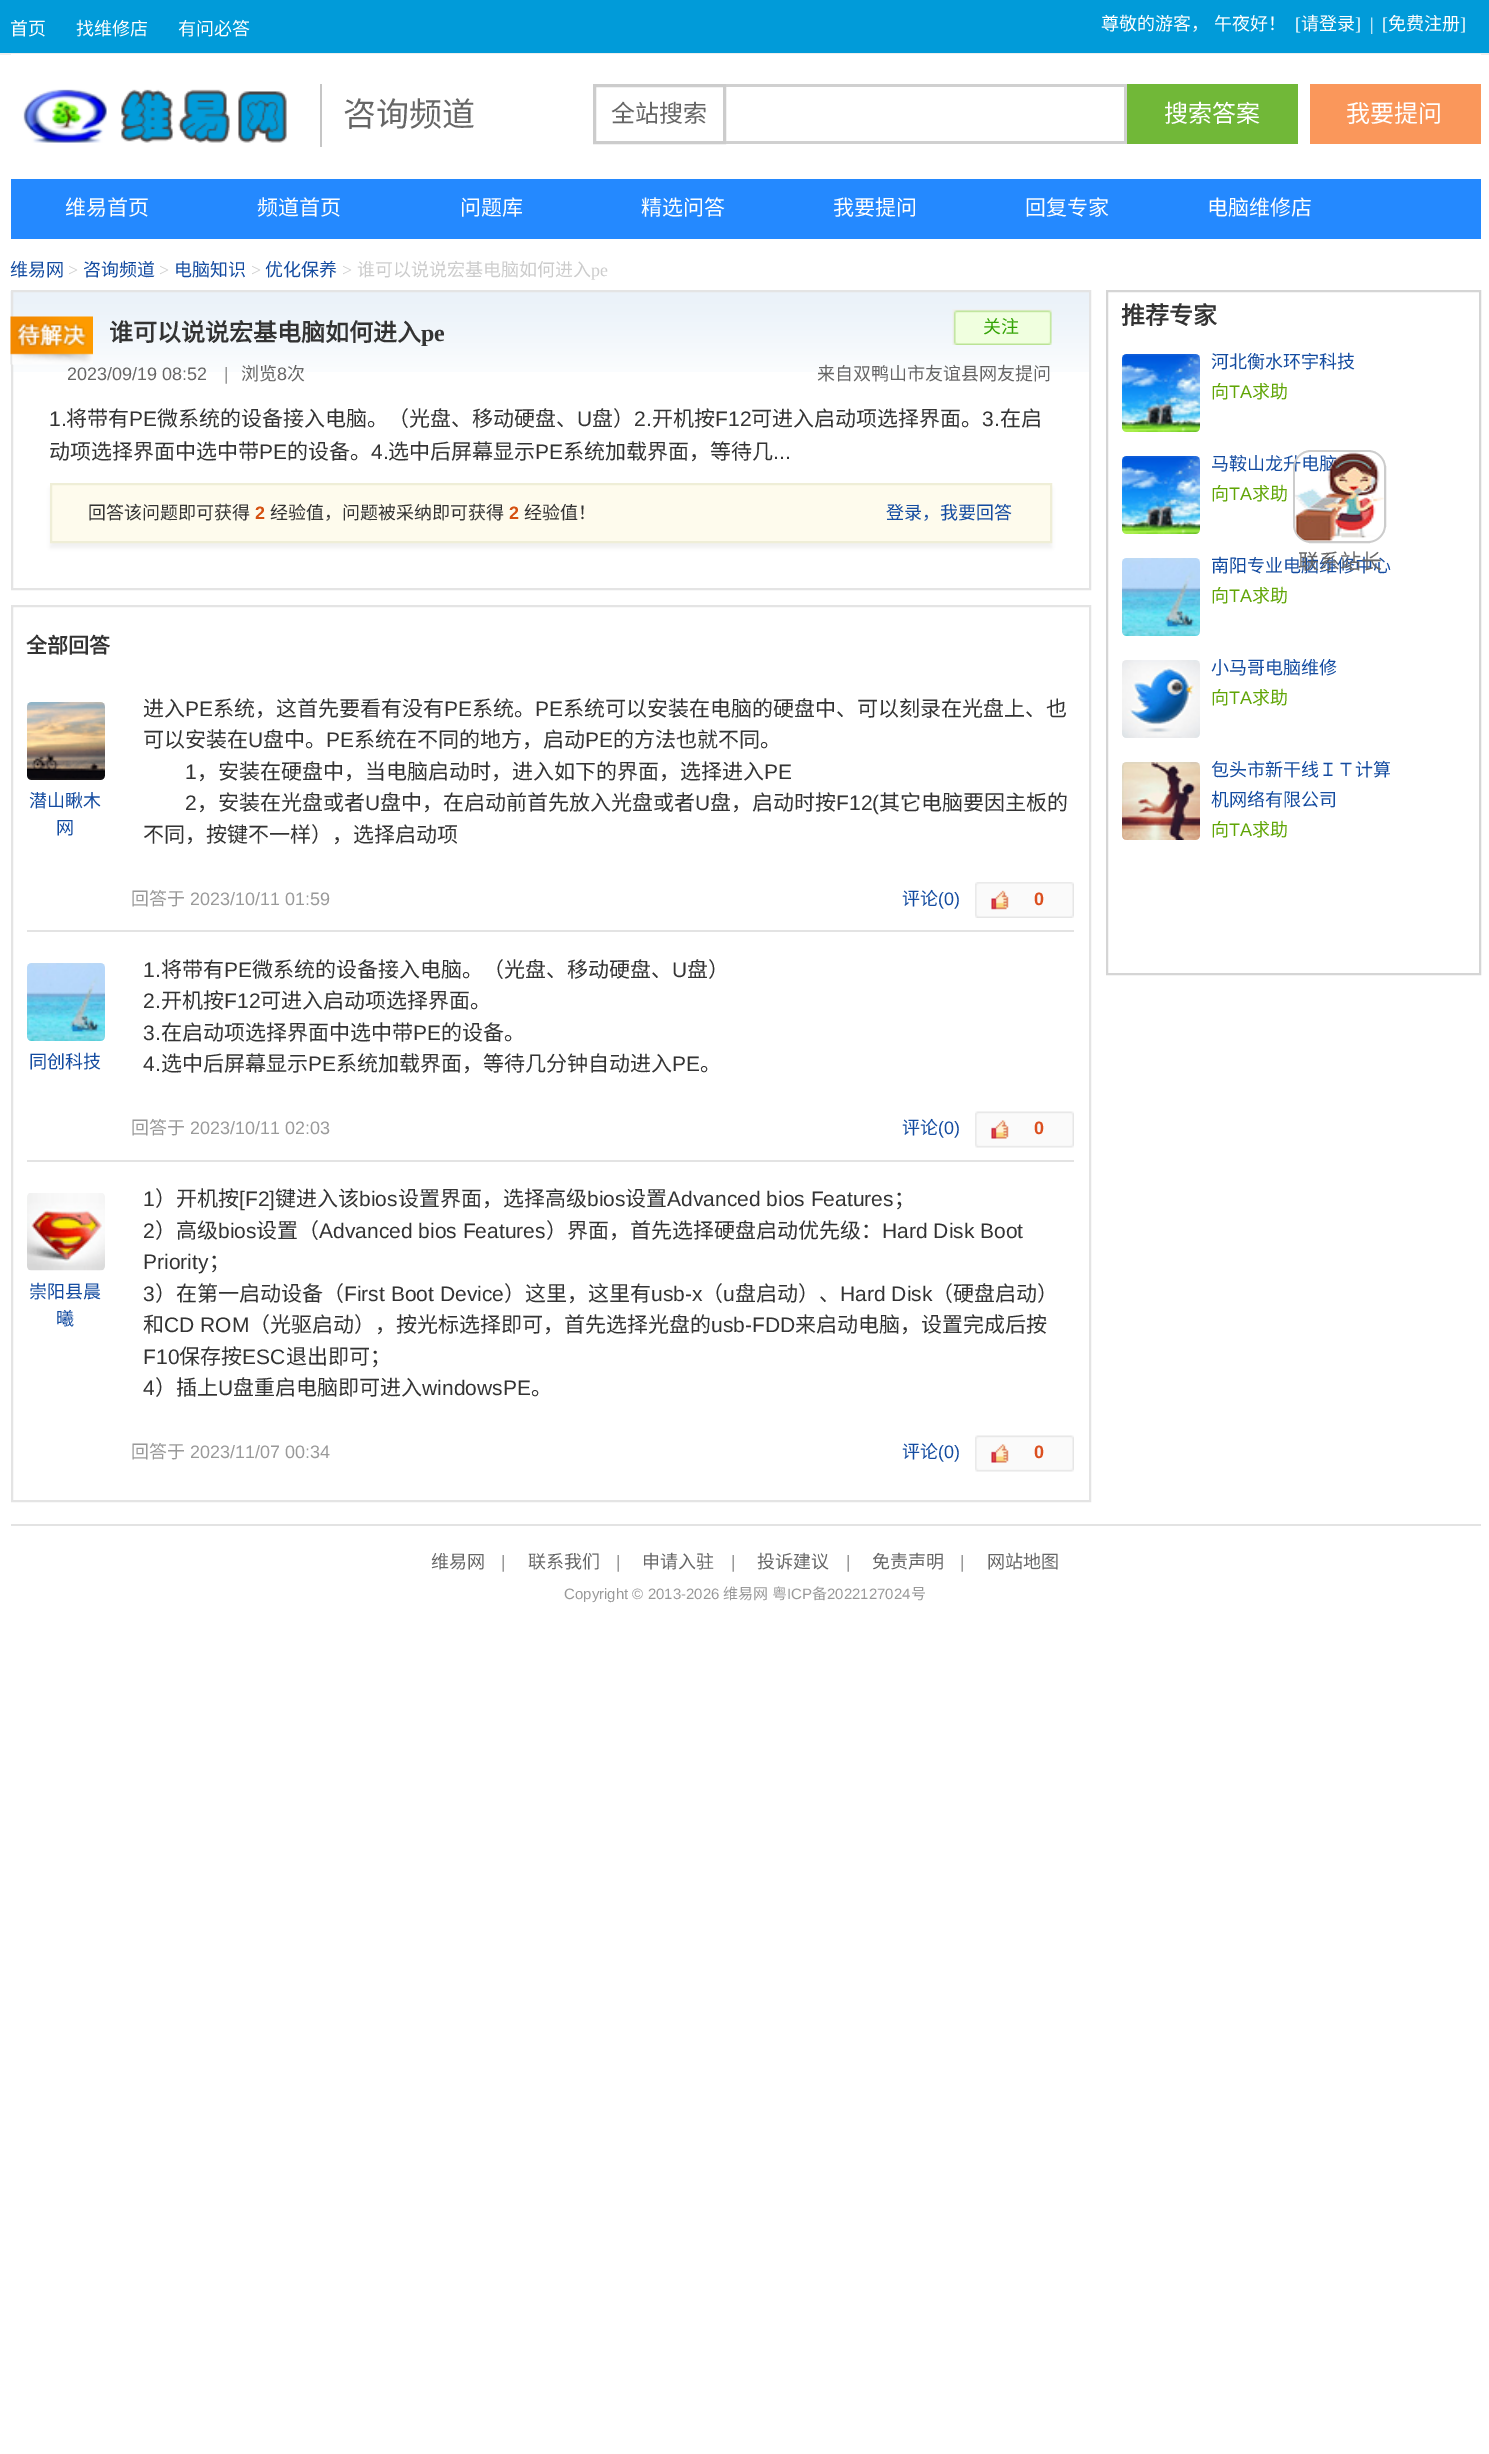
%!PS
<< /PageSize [1489 2454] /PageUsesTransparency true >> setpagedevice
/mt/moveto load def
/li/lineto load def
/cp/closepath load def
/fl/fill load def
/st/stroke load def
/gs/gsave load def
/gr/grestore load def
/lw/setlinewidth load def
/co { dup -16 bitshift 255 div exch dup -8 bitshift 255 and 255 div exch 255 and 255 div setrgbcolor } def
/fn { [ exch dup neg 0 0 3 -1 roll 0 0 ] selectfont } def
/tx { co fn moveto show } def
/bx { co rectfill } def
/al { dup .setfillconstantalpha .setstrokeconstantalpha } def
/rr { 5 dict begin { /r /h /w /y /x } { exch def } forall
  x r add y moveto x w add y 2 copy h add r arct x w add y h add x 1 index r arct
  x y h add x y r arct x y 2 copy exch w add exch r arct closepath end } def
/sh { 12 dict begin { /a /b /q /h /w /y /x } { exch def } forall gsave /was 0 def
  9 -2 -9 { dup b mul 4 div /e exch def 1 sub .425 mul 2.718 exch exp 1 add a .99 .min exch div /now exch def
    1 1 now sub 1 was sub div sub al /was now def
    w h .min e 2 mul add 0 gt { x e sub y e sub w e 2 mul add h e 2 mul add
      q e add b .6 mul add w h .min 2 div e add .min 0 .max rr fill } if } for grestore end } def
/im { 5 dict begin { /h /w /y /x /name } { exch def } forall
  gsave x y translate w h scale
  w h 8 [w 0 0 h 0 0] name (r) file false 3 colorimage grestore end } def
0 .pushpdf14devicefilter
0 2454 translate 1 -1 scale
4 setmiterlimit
0 0 1489 2454 16#FFFFFF bx
0 0 1489 53 16#019BD9 bx
0 53 1489 2 16#EEEEEE bx
11 54 1470 1 16#FFFFFF bx
(media/1.raw) 23 89 264 54 im
320 84 2 63 16#C6C6C6 bx
16#CCCCCC co
3 lw
594.5 85.5 130 57 rectstroke
726 84 401 3 16#D0D0D0 bx
1124 84 3 60 16#D0D0D0 bx
726 141 401 3 16#D0D0D0 bx
1127 84 171 60 16#71B838 bx
1310 84 171 60 16#FA975B bx
11 179 1470 60 16#2489FF bx
(media/2.raw) 10 291 1079 81 im
16#E4E4E4 co
2 lw
12 291 1078 298 rectstroke
(media/3.raw) 10 316 83 49 im
(media/4.raw) 952 309 100 36 im
16#000000 co
50 488 1002 60 0 2 .05 sh
16#FEFBED co
51 484 mt 1051 484 li 1051 542 li 51 542 li cp gs fl gr
16#EFEED7 co
st
16#E4E4E4 co
12 606 1078 895 rectstroke
(media/5.raw) 27 702 78 78 im
(media/6.raw) 975 882 99 36 im
27 930 1047 2 16#E3E3E3 bx
(media/7.raw) 27 963 78 78 im
(media/8.raw) 975 1111 99 37 im
27 1160 1047 2 16#E3E3E3 bx
(media/9.raw) 27 1193 78 78 im
(media/8.raw) 975 1435 99 37 im
16#D5D5D5 co
1107 291 373 683 rectstroke
(media/10.raw) 1122 354 78 78 im
(media/10.raw) 1122 456 78 78 im
(media/11.raw) 1122 558 78 78 im
(media/12.raw) 1122 660 78 78 im
(media/13.raw) 1122 762 78 78 im
11 1524 1470 2 16#E3E3E3 bx
(首页) 10 35 /NotoSansCJKSC-Regular 18 16#FFFFFF tx
(找维修店) 76 35 /NotoSansCJKSC-Regular 18 16#FFFFFF tx
(有问必答) 178 35 /NotoSansCJKSC-Regular 18 16#FFFFFF tx
(尊敬的游客，) 1101 30 /NotoSansCJKSC-Regular 18 16#FFFFFF tx
(午夜好！) 1214 30 /NotoSansCJKSC-Regular 18 16#FFFFFF tx
([) 1295 30 /LiberationSerif-Regular 18 16#FFFFFF tx
(请登录) 1301 30 /NotoSansCJKSC-Regular 18 16#FFFFFF tx
(]) 1355 30 /LiberationSerif-Regular 18 16#FFFFFF tx
(|) 1370 30 /LiberationSerif-Regular 18 16#FFFFFF tx
([) 1382 30 /LiberationSerif-Regular 18 16#FFFFFF tx
(免费注册) 1388 30 /NotoSansCJKSC-Regular 18 16#FFFFFF tx
(]) 1460 30 /LiberationSerif-Regular 18 16#FFFFFF tx
(咨询频道) 343 126 /NotoSansCJKSC-Regular 33 16#666666 tx
(全站搜索) 611 122 /NotoSansCJKSC-Regular 24 16#666666 tx
(搜索答案) 1164 122 /NotoSansCJKSC-Regular 24 16#FFFFFF tx
(我要提问) 1346 122 /NotoSansCJKSC-Regular 24 16#FFFFFF tx
(维易首页) 65 215 /NotoSansCJKSC-Regular 21 16#FFFFFF tx
(频道首页) 257 215 /NotoSansCJKSC-Regular 21 16#FFFFFF tx
(问题库) 460 215 /NotoSansCJKSC-Regular 21 16#FFFFFF tx
(精选问答) 641 215 /NotoSansCJKSC-Regular 21 16#FFFFFF tx
(我要提问) 833 215 /NotoSansCJKSC-Regular 21 16#FFFFFF tx
(回复专家) 1025 215 /NotoSansCJKSC-Regular 21 16#FFFFFF tx
(电脑维修店) 1207 215 /NotoSansCJKSC-Regular 21 16#FFFFFF tx
(维易网) 10 276 /NotoSansCJKSC-Regular 18 16#134BA0 tx
(>) 68 276 /LiberationSerif-Regular 18 16#CCCCCC tx
(咨询频道) 83 276 /NotoSansCJKSC-Regular 18 16#134BA0 tx
(>) 159 276 /LiberationSerif-Regular 18 16#CCCCCC tx
(电脑知识) 174 276 /NotoSansCJKSC-Regular 18 16#134BA0 tx
(>) 251 276 /LiberationSerif-Regular 18 16#CCCCCC tx
(优化保养) 265 276 /NotoSansCJKSC-Regular 18 16#134BA0 tx
(>) 342 276 /LiberationSerif-Regular 18 16#CCCCCC tx
(谁可以说说宏基电脑如何进入) 357 276 /NotoSansCJKSC-Regular 18 16#CCCCCC tx
(pe) 591 276 /LiberationSerif-Regular 18 16#CCCCCC tx
(谁可以说说宏基电脑如何进入) 109 341 /NotoSansCJKSC-Bold 24 16#333333 tx
(pe) 421 341 /LiberationSerif-Bold 24 16#333333 tx
(关注) 983 333 /NotoSansCJKSC-Regular 18 16#34A305 tx
(2023/09/19 08:52) 67 380 /LiberationSans-Regular 18 16#666666 tx
(|) 224 380 /LiberationSans-Regular 18 16#999999 tx
(浏览) 241 380 /NotoSansCJKSC-Regular 18 16#666666 tx
(8) 277 380 /LiberationSans-Regular 18 16#666666 tx
(次) 287 380 /NotoSansCJKSC-Regular 18 16#666666 tx
(来自双鸭山市友谊县网友提问) 817 380 /NotoSansCJKSC-Regular 18 16#666666 tx
(1.) 49 426 /LiberationSans-Regular 21 16#333333 tx
(将带有) 66 426 /NotoSansCJKSC-Regular 21 16#333333 tx
(PE) 129 426 /LiberationSans-Regular 21 16#333333 tx
(微系统的设备接入电脑。（光盘、移动硬盘、) 157 426 /NotoSansCJKSC-Regular 21 16#333333 tx
(U) 577 426 /LiberationSans-Regular 21 16#333333 tx
(盘）) 592 426 /NotoSansCJKSC-Regular 21 16#333333 tx
(2.) 634 426 /LiberationSans-Regular 21 16#333333 tx
(开机按) 652 426 /NotoSansCJKSC-Regular 21 16#333333 tx
(F12) 715 426 /LiberationSans-Regular 21 16#333333 tx
(可进入启动项选择界面。) 751 426 /NotoSansCJKSC-Regular 21 16#333333 tx
(3.) 982 426 /LiberationSans-Regular 21 16#333333 tx
(在启) 1000 426 /NotoSansCJKSC-Regular 21 16#333333 tx
(动项选择界面中选中带) 49 459 /NotoSansCJKSC-Regular 21 16#333333 tx
(PE) 259 459 /LiberationSans-Regular 21 16#333333 tx
(的设备。) 287 459 /NotoSansCJKSC-Regular 21 16#333333 tx
(4.) 371 459 /LiberationSans-Regular 21 16#333333 tx
(选中后屏幕显示) 388 459 /NotoSansCJKSC-Regular 21 16#333333 tx
(PE) 535 459 /LiberationSans-Regular 21 16#333333 tx
(系统加载界面，等待几) 563 459 /NotoSansCJKSC-Regular 21 16#333333 tx
(...) 773 459 /LiberationSans-Regular 21 16#333333 tx
(回答该问题即可获得) 88 519 /NotoSansCJKSC-Regular 18 16#333333 tx
(2) 255 519 /LiberationSans-Bold 18 16#D55111 tx
(经验值，问题被采纳即可获得) 270 519 /NotoSansCJKSC-Regular 18 16#333333 tx
(2) 509 519 /LiberationSans-Bold 18 16#D55111 tx
(经验值！) 524 519 /NotoSansCJKSC-Regular 18 16#333333 tx
(登录，我要回答) 886 519 /NotoSansCJKSC-Regular 18 16#134BA0 tx
(全部回答) 26 653 /NotoSansCJKSC-Bold 21 16#333333 tx
(潜山瞅木) 29 807 /NotoSansCJKSC-Regular 18 16#134BA0 tx
(网) 56 834 /NotoSansCJKSC-Regular 18 16#134BA0 tx
(进入) 143 716 /NotoSansCJKSC-Regular 21 16#333333 tx
(PE) 185 716 /LiberationSans-Regular 21 16#333333 tx
(系统，这首先要看有没有) 213 716 /NotoSansCJKSC-Regular 21 16#333333 tx
(PE) 444 716 /LiberationSans-Regular 21 16#333333 tx
(系统。) 472 716 /NotoSansCJKSC-Regular 21 16#333333 tx
(PE) 535 716 /LiberationSans-Regular 21 16#333333 tx
(系统可以安装在电脑的硬盘中、可以刻录在光盘上、也) 563 716 /NotoSansCJKSC-Regular 21 16#333333 tx
(可以安装在) 143 747 /NotoSansCJKSC-Regular 21 16#333333 tx
(U) 248 747 /LiberationSans-Regular 21 16#333333 tx
(盘中。) 263 747 /NotoSansCJKSC-Regular 21 16#333333 tx
(PE) 326 747 /LiberationSans-Regular 21 16#333333 tx
(系统在不同的地方，启动) 354 747 /NotoSansCJKSC-Regular 21 16#333333 tx
(PE) 585 747 /LiberationSans-Regular 21 16#333333 tx
(的方法也就不同。) 613 747 /NotoSansCJKSC-Regular 21 16#333333 tx
(1) 185 779 /LiberationSans-Regular 21 16#333333 tx
(，安装在硬盘中，当电脑启动时，进入如下的界面，选择进入) 197 779 /NotoSansCJKSC-Regular 21 16#333333 tx
(PE) 764 779 /LiberationSans-Regular 21 16#333333 tx
(2) 185 810 /LiberationSans-Regular 21 16#333333 tx
(，安装在光盘或者) 197 810 /NotoSansCJKSC-Regular 21 16#333333 tx
(U) 365 810 /LiberationSans-Regular 21 16#333333 tx
(盘中，在启动前首先放入光盘或者) 380 810 /NotoSansCJKSC-Regular 21 16#333333 tx
(U) 695 810 /LiberationSans-Regular 21 16#333333 tx
(盘，启动时按) 710 810 /NotoSansCJKSC-Regular 21 16#333333 tx
(F12\() 836 810 /LiberationSans-Regular 21 16#333333 tx
(其它电脑要因主板的) 879 810 /NotoSansCJKSC-Regular 21 16#333333 tx
(不同，按键不一样），选择启动项) 143 842 /NotoSansCJKSC-Regular 21 16#333333 tx
(回答于) 131 905 /NotoSansCJKSC-Regular 18 16#999999 tx
(2023/10/11 01:59) 190 905 /LiberationSans-Regular 18 16#999999 tx
(评论) 902 905 /NotoSansCJKSC-Regular 18 16#134BA0 tx
(\(0\)) 938 905 /LiberationSans-Regular 18 16#134BA0 tx
(0) 1034 905 /LiberationSans-Bold 18 16#DB4F1F tx
(同创科技) 29 1068 /NotoSansCJKSC-Regular 18 16#134BA0 tx
(1.) 143 977 /LiberationSans-Regular 21 16#333333 tx
(将带有) 161 977 /NotoSansCJKSC-Regular 21 16#333333 tx
(PE) 224 977 /LiberationSans-Regular 21 16#333333 tx
(微系统的设备接入电脑。（光盘、移动硬盘、) 252 977 /NotoSansCJKSC-Regular 21 16#333333 tx
(U) 672 977 /LiberationSans-Regular 21 16#333333 tx
(盘）) 687 977 /NotoSansCJKSC-Regular 21 16#333333 tx
(2.) 143 1008 /LiberationSans-Regular 21 16#333333 tx
(开机按) 161 1008 /NotoSansCJKSC-Regular 21 16#333333 tx
(F12) 224 1008 /LiberationSans-Regular 21 16#333333 tx
(可进入启动项选择界面。) 260 1008 /NotoSansCJKSC-Regular 21 16#333333 tx
(3.) 143 1040 /LiberationSans-Regular 21 16#333333 tx
(在启动项选择界面中选中带) 161 1040 /NotoSansCJKSC-Regular 21 16#333333 tx
(PE) 413 1040 /LiberationSans-Regular 21 16#333333 tx
(的设备。) 441 1040 /NotoSansCJKSC-Regular 21 16#333333 tx
(4.) 143 1071 /LiberationSans-Regular 21 16#333333 tx
(选中后屏幕显示) 161 1071 /NotoSansCJKSC-Regular 21 16#333333 tx
(PE) 308 1071 /LiberationSans-Regular 21 16#333333 tx
(系统加载界面，等待几分钟自动进入) 336 1071 /NotoSansCJKSC-Regular 21 16#333333 tx
(PE) 672 1071 /LiberationSans-Regular 21 16#333333 tx
(。) 700 1071 /NotoSansCJKSC-Regular 21 16#333333 tx
(回答于) 131 1134 /NotoSansCJKSC-Regular 18 16#999999 tx
(2023/10/11 02:03) 190 1134 /LiberationSans-Regular 18 16#999999 tx
(评论) 902 1134 /NotoSansCJKSC-Regular 18 16#134BA0 tx
(\(0\)) 938 1134 /LiberationSans-Regular 18 16#134BA0 tx
(0) 1034 1134 /LiberationSans-Bold 18 16#DB4F1F tx
(崇阳县晨) 29 1298 /NotoSansCJKSC-Regular 18 16#134BA0 tx
(曦) 56 1325 /NotoSansCJKSC-Regular 18 16#134BA0 tx
(1) 143 1206 /LiberationSans-Regular 21 16#333333 tx
(）开机按) 155 1206 /NotoSansCJKSC-Regular 21 16#333333 tx
([F2]) 239 1206 /LiberationSans-Regular 21 16#333333 tx
(键进入该) 275 1206 /NotoSansCJKSC-Regular 21 16#333333 tx
(bios) 359 1206 /LiberationSans-Regular 21 16#333333 tx
(设置界面，选择高级) 398 1206 /NotoSansCJKSC-Regular 21 16#333333 tx
(bios) 587 1206 /LiberationSans-Regular 21 16#333333 tx
(设置) 625 1206 /NotoSansCJKSC-Regular 21 16#333333 tx
(Advanced bios Features) 667 1206 /LiberationSans-Regular 21 16#333333 tx
(；) 894 1206 /NotoSansCJKSC-Regular 21 16#333333 tx
(2) 143 1238 /LiberationSans-Regular 21 16#333333 tx
(）高级) 155 1238 /NotoSansCJKSC-Regular 21 16#333333 tx
(bios) 218 1238 /LiberationSans-Regular 21 16#333333 tx
(设置（) 256 1238 /NotoSansCJKSC-Regular 21 16#333333 tx
(Advanced bios Features) 319 1238 /LiberationSans-Regular 21 16#333333 tx
(）界面，首先选择硬盘启动优先级：) 546 1238 /NotoSansCJKSC-Regular 21 16#333333 tx
(Hard Disk Boot) 882 1238 /LiberationSans-Regular 21 16#333333 tx
(Priority) 143 1269 /LiberationSans-Regular 21 16#333333 tx
(；) 209 1269 /NotoSansCJKSC-Regular 21 16#333333 tx
(3) 143 1301 /LiberationSans-Regular 21 16#333333 tx
(）在第一启动设备（) 155 1301 /NotoSansCJKSC-Regular 21 16#333333 tx
(First Boot Device) 344 1301 /LiberationSans-Regular 21 16#333333 tx
(）这里，这里有) 504 1301 /NotoSansCJKSC-Regular 21 16#333333 tx
(usb-x) 651 1301 /LiberationSans-Regular 21 16#333333 tx
(（) 702 1301 /NotoSansCJKSC-Regular 21 16#333333 tx
(u) 723 1301 /LiberationSans-Regular 21 16#333333 tx
(盘启动）、) 735 1301 /NotoSansCJKSC-Regular 21 16#333333 tx
(Hard Disk) 840 1301 /LiberationSans-Regular 21 16#333333 tx
(（硬盘启动）) 932 1301 /NotoSansCJKSC-Regular 21 16#333333 tx
(和) 143 1332 /NotoSansCJKSC-Regular 21 16#333333 tx
(CD ROM) 164 1332 /LiberationSans-Regular 21 16#333333 tx
(（光驱启动），按光标选择即可，首先选择光盘的) 249 1332 /NotoSansCJKSC-Regular 21 16#333333 tx
(usb-FDD) 711 1332 /LiberationSans-Regular 21 16#333333 tx
(来启动电脑，设置完成后按) 795 1332 /NotoSansCJKSC-Regular 21 16#333333 tx
(F10) 143 1364 /LiberationSans-Regular 21 16#333333 tx
(保存按) 179 1364 /NotoSansCJKSC-Regular 21 16#333333 tx
(ESC) 242 1364 /LiberationSans-Regular 21 16#333333 tx
(退出即可；) 286 1364 /NotoSansCJKSC-Regular 21 16#333333 tx
(4) 143 1395 /LiberationSans-Regular 21 16#333333 tx
(）插上) 155 1395 /NotoSansCJKSC-Regular 21 16#333333 tx
(U) 218 1395 /LiberationSans-Regular 21 16#333333 tx
(盘重启电脑即可进入) 233 1395 /NotoSansCJKSC-Regular 21 16#333333 tx
(windowsPE) 422 1395 /LiberationSans-Regular 21 16#333333 tx
(。) 531 1395 /NotoSansCJKSC-Regular 21 16#333333 tx
(回答于) 131 1458 /NotoSansCJKSC-Regular 18 16#999999 tx
(2023/11/07 00:34) 190 1458 /LiberationSans-Regular 18 16#999999 tx
(评论) 902 1458 /NotoSansCJKSC-Regular 18 16#134BA0 tx
(\(0\)) 938 1458 /LiberationSans-Regular 18 16#134BA0 tx
(0) 1034 1458 /LiberationSans-Bold 18 16#DB4F1F tx
(推荐专家) 1121 324 /NotoSansCJKSC-Bold 24 16#333333 tx
(河北衡水环宇科技) 1211 368 /NotoSansCJKSC-Regular 18 16#134BA0 tx
(向) 1211 398 /NotoSansCJKSC-Regular 18 16#60A506 tx
(TA) 1229 398 /LiberationSans-Regular 18 16#60A506 tx
(求助) 1252 398 /NotoSansCJKSC-Regular 18 16#60A506 tx
(马鞍山龙升电脑) 1211 470 /NotoSansCJKSC-Regular 18 16#134BA0 tx
(向) 1211 500 /NotoSansCJKSC-Regular 18 16#60A506 tx
(TA) 1229 500 /LiberationSans-Regular 18 16#60A506 tx
(求助) 1252 500 /NotoSansCJKSC-Regular 18 16#60A506 tx
(南阳专业电脑维修中心) 1211 572 /NotoSansCJKSC-Regular 18 16#134BA0 tx
(向) 1211 602 /NotoSansCJKSC-Regular 18 16#60A506 tx
(TA) 1229 602 /LiberationSans-Regular 18 16#60A506 tx
(求助) 1252 602 /NotoSansCJKSC-Regular 18 16#60A506 tx
(小马哥电脑维修) 1211 674 /NotoSansCJKSC-Regular 18 16#134BA0 tx
(向) 1211 704 /NotoSansCJKSC-Regular 18 16#60A506 tx
(TA) 1229 704 /LiberationSans-Regular 18 16#60A506 tx
(求助) 1252 704 /NotoSansCJKSC-Regular 18 16#60A506 tx
(包头市新干线ＩＴ计算) 1211 776 /NotoSansCJKSC-Regular 18 16#134BA0 tx
(机网络有限公司) 1211 806 /NotoSansCJKSC-Regular 18 16#134BA0 tx
(向) 1211 836 /NotoSansCJKSC-Regular 18 16#60A506 tx
(TA) 1229 836 /LiberationSans-Regular 18 16#60A506 tx
(求助) 1252 836 /NotoSansCJKSC-Regular 18 16#60A506 tx
16#CCCCCC co
1294 451 91 91 17 rr st
(media/14.raw) 1294 452 90 90 im
(联系站长) 1298 569 /NotoSansCJKSC-Regular 21 16#666666 tx
(维易网) 431 1568 /NotoSansCJKSC-Regular 18 16#666666 tx
(|) 501 1568 /LiberationSans-Regular 18 16#999999 tx
(联系我们) 528 1568 /NotoSansCJKSC-Regular 18 16#666666 tx
(|) 616 1568 /LiberationSans-Regular 18 16#999999 tx
(申请入驻) 642 1568 /NotoSansCJKSC-Regular 18 16#666666 tx
(|) 731 1568 /LiberationSans-Regular 18 16#999999 tx
(投诉建议) 757 1568 /NotoSansCJKSC-Regular 18 16#666666 tx
(|) 846 1568 /LiberationSans-Regular 18 16#999999 tx
(免责声明) 872 1568 /NotoSansCJKSC-Regular 18 16#666666 tx
(|) 960 1568 /LiberationSans-Regular 18 16#999999 tx
(网站地图) 987 1568 /NotoSansCJKSC-Regular 18 16#666666 tx
(Copyright © 2013-2026) 564 1599 /LiberationSans-Regular 15 16#999999 tx
(维易网) 723 1599 /NotoSansCJKSC-Regular 15 16#999999 tx
(粤) 772 1599 /NotoSansCJKSC-Regular 15 16#999999 tx
(ICP) 787 1599 /LiberationSans-Regular 15 16#999999 tx
(备) 812 1599 /NotoSansCJKSC-Regular 15 16#999999 tx
(2022127024) 827 1599 /LiberationSans-Regular 15 16#999999 tx
(号) 911 1599 /NotoSansCJKSC-Regular 15 16#999999 tx
.poppdf14devicefilter showpage
